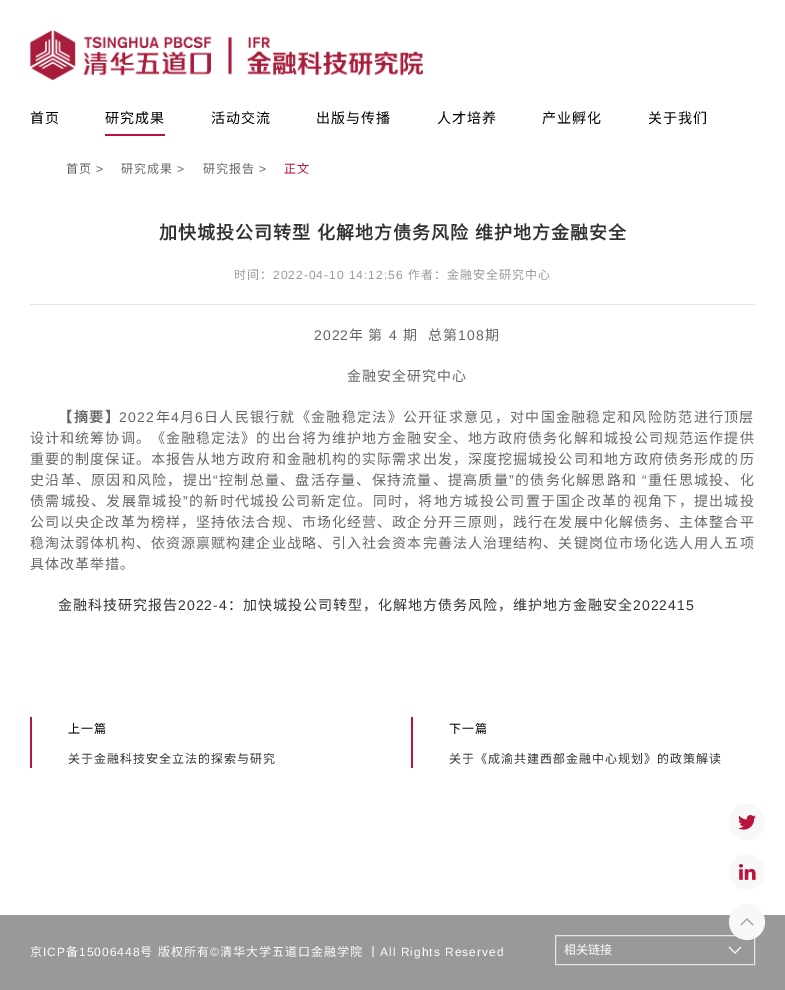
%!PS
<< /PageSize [785 990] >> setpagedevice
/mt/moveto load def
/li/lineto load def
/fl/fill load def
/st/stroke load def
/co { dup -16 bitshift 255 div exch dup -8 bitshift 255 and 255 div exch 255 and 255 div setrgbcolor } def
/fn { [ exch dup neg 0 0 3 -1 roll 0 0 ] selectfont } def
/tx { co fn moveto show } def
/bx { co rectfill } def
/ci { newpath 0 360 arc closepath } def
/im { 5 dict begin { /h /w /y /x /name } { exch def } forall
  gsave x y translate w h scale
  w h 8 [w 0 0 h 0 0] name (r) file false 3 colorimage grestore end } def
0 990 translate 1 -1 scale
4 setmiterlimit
0 0 785 990 16#FFFFFF bx
(media/1.raw) 30 30 393 50 im
105 134 60 2 16#BB133E bx
30 304 725 1 16#E5E5E5 bx
30 717 2 51 16#BB133E bx
411 717 2 51 16#BB133E bx
16#F8F8F8 co
747 822 18 ci fl
(media/2.raw) 738 815 18 15 im
747 872 18 ci fl
(media/3.raw) 739 864 17 16 im
0 915 785 75 16#999999 bx
16#E5E5E5 co
555.5 935.5 199 29 rectstroke
16#F8F8F8 co
747 922 18 ci fl
16#999999 co
741 925 mt 747 919 li 753 925 li st
16#FFFFFF co
741 947 mt 735 953 li 729 947 li st
/NotoSansCJKSC-Regular 14 fn
16#000000 co
30 123 mt 1 0 (首页) ashow
105 123 mt 1 0 (研究成果) ashow
211 123 mt 1 0 (活动交流) ashow
316 123 mt 1 0 (出版与传播) ashow
437 123 mt 1 0 (人才培养) ashow
542 123 mt 1 0 (产业孵化) ashow
648 123 mt 1 0 (关于我们) ashow
/NotoSansCJKSC-Regular 12 fn
16#666666 co
66 173 mt 1 0 (首页) ashow
/LiberationSans-Regular 12 fn
96 173 mt 1 0 (>) ashow
/NotoSansCJKSC-Regular 12 fn
121 173 mt 1 0 (研究成果) ashow
/LiberationSans-Regular 12 fn
177 173 mt 1 0 (>) ashow
/NotoSansCJKSC-Regular 12 fn
203 173 mt 1 0 (研究报告) ashow
/LiberationSans-Regular 12 fn
259 173 mt 1 0 (>) ashow
/NotoSansCJKSC-Regular 12 fn
16#BB133E co
284 173 mt 1 0 (正文) ashow
/NotoSansCJKSC-Bold 18 fn
16#333333 co
159 239 mt 1 0 (加快城投公司转型) ashow
317 239 mt 1 0 (化解地方债务风险) ashow
475 239 mt 1 0 (维护地方金融安全) ashow
/NotoSansCJKSC-Regular 12 fn
16#999999 co
234 279 mt 1 0 (时间：) ashow
/LiberationSans-Regular 12 fn
273 279 mt 1 0 (2022-04-10 14:12:56) ashow
/NotoSansCJKSC-Regular 12 fn
408 279 mt 1 0 (作者：金融安全研究中心) ashow
/LiberationSans-Regular 14 fn
16#666666 co
314 340 mt 1 0 (2022) ashow
/NotoSansCJKSC-Regular 14 fn
349 340 mt 1 0 (年 第) ashow
/LiberationSans-Regular 14 fn
389 340 mt 1 0 (4) ashow
/NotoSansCJKSC-Regular 14 fn
403 340 mt 1 0 (期) ashow
428 340 mt 1 0 (总第) ashow
/LiberationSans-Regular 14 fn
458 340 mt 1 0 (108) ashow
/NotoSansCJKSC-Regular 14 fn
485 340 mt 1 0 (期) ashow
347 381 mt 1 0 (金融安全研究中心) ashow
/NotoSansCJKSC-Bold 14 fn
58 422 mt 1.5 0 (【摘要】) ashow
/LiberationSans-Regular 14 fn
119 422 mt 1.3 0 (2022) ashow
/NotoSansCJKSC-Regular 14 fn
156 422 mt 1.3 0 (年) ashow
/LiberationSans-Regular 14 fn
171 422 mt 1.3 0 (4) ashow
/NotoSansCJKSC-Regular 14 fn
180 422 mt 1.3 0 (月) ashow
/LiberationSans-Regular 14 fn
195 422 mt 1.3 0 (6) ashow
/NotoSansCJKSC-Regular 14 fn
204 422 mt 1.3 0 (日人民银行就《金融稳定法》公开征求意见，对中国金融稳定和风险防范进行顶层) ashow
30 443 mt 1.1 0 (设计和统筹协调。《金融稳定法》的出台将为维护地方金融安全、地方政府债务化解和城投公司规范运作提供) ashow
30 464 mt 1.1 0 (重要的制度保证。本报告从地方政府和金融机构的实际需求出发，深度挖掘城投公司和地方政府债务形成的历) ashow
30 485 mt 1.25 0 (史沿革、原因和风险，提出) ashow
/LiberationSans-Regular 14 fn
213 485 mt 1.25 0 (“) ashow
/NotoSansCJKSC-Regular 14 fn
219 485 mt 1.25 0 (控制总量、盘活存量、保持流量、提高质量) ashow
/LiberationSans-Regular 14 fn
509 485 mt 1.25 0 (”) ashow
/NotoSansCJKSC-Regular 14 fn
515 485 mt 1.25 0 (的债务化解思路和) ashow
/LiberationSans-Regular 14 fn
642 485 mt 1.25 0 (“) ashow
/NotoSansCJKSC-Regular 14 fn
648 485 mt 1.25 0 (重任思城投、化) ashow
30 506 mt 1.3 0 (债需城投、发展靠城投) ashow
/LiberationSans-Regular 14 fn
183 506 mt 1.3 0 (”) ashow
/NotoSansCJKSC-Regular 14 fn
189 506 mt 1.3 0 (的新时代城投公司新定位。同时，将地方城投公司置于国企改革的视角下，提出城投) ashow
30 527 mt 1.1 0 (公司以央企改革为榜样，坚持依法合规、市场化经营、政企分开三原则，践行在发展中化解债务、主体整合平) ashow
30 548 mt 1.1 0 (稳淘汰弱体机构、依资源禀赋构建企业战略、引入社会资本完善法人治理结构、关键岗位市场化选人用人五项) ashow
30 569 mt 1 0 (具体改革举措。) ashow
16#333333 co
58 610 mt 1 0 (金融科技研究报告) ashow
/LiberationSans-Regular 14 fn
178 610 mt 1 0 (2022-4) ashow
/NotoSansCJKSC-Regular 14 fn
228 610 mt 1 0 (：加快城投公司转型，化解地方债务风险，维护地方金融安全) ashow
/LiberationSans-Regular 14 fn
633 610 mt 1 0 (2022415) ashow
/NotoSansCJKSC-Regular 12 fn
16#000000 co
68 733 mt 1 0 (上一篇) ashow
16#333333 co
68 763 mt 1 0 (关于金融科技安全立法的探索与研究) ashow
16#000000 co
449 733 mt 1 0 (下一篇) ashow
16#333333 co
449 763 mt 1 0 (关于《成渝共建西部金融中心规划》的政策解读) ashow
16#FFFFFF co
30 956 mt 1 0 (京) ashow
/LiberationSans-Regular 12 fn
43 956 mt 1 0 (ICP) ashow
/NotoSansCJKSC-Regular 12 fn
66 956 mt 1 0 (备) ashow
/LiberationSans-Regular 12 fn
79 956 mt 1 0 (15006448) ashow
/NotoSansCJKSC-Regular 12 fn
140 956 mt 1 0 (号) ashow
158 956 mt 1 0 (版权所有) ashow
/LiberationSans-Regular 12 fn
210 956 mt 1 0 (©) ashow
/NotoSansCJKSC-Regular 12 fn
220 956 mt 1 0 (清华大学五道口金融学院) ashow
367 956 mt 1 0 (丨) ashow
/LiberationSans-Regular 12 fn
380 956 mt 1 0 (All Rights Reserved) ashow
(相关链接) 564 954 /NotoSansCJKSC-Regular 12 16#FFFFFF tx
showpage
